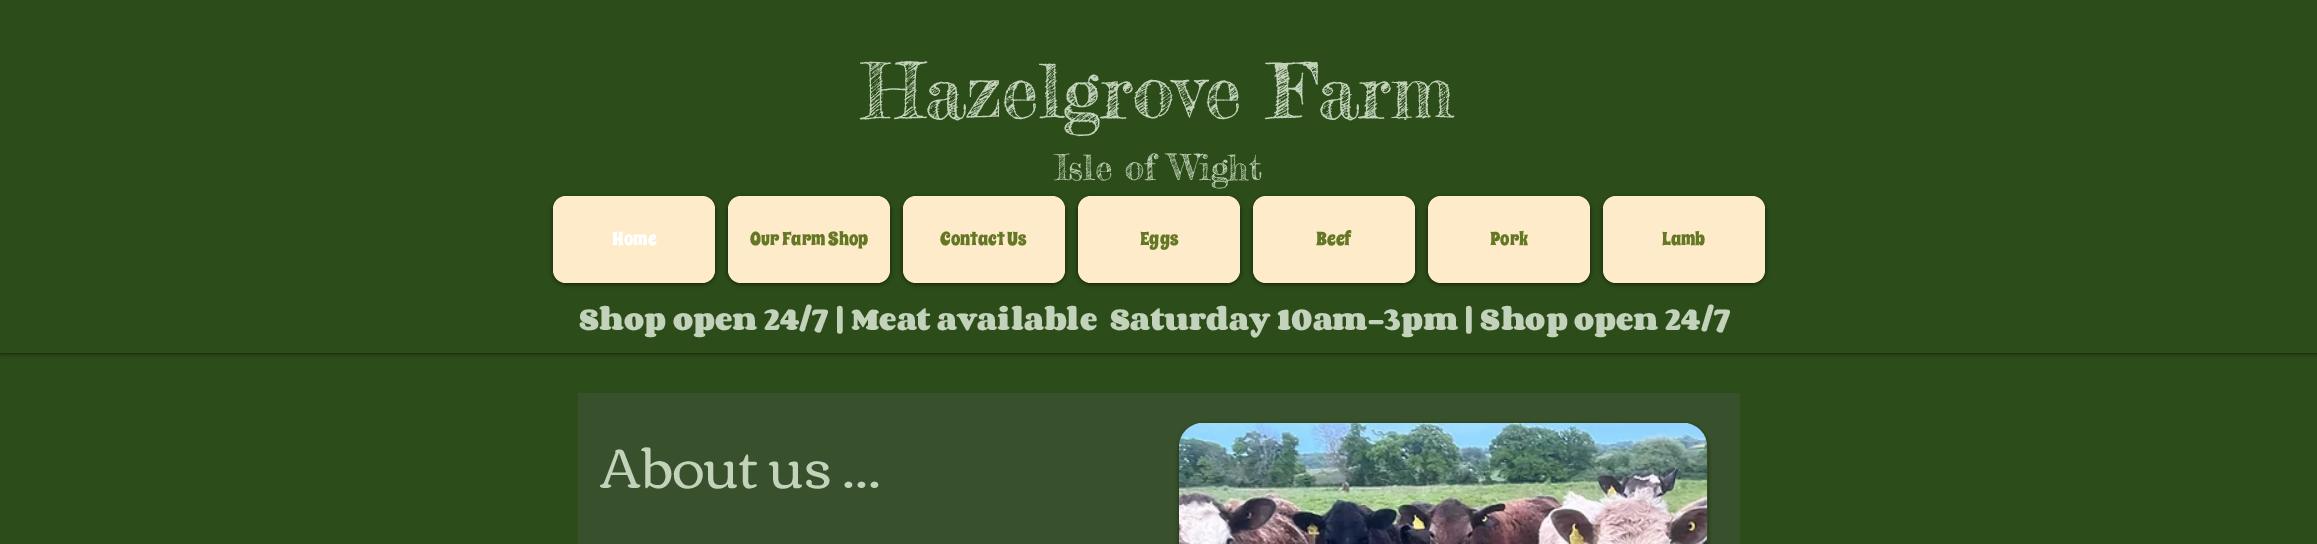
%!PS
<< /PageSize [2317 544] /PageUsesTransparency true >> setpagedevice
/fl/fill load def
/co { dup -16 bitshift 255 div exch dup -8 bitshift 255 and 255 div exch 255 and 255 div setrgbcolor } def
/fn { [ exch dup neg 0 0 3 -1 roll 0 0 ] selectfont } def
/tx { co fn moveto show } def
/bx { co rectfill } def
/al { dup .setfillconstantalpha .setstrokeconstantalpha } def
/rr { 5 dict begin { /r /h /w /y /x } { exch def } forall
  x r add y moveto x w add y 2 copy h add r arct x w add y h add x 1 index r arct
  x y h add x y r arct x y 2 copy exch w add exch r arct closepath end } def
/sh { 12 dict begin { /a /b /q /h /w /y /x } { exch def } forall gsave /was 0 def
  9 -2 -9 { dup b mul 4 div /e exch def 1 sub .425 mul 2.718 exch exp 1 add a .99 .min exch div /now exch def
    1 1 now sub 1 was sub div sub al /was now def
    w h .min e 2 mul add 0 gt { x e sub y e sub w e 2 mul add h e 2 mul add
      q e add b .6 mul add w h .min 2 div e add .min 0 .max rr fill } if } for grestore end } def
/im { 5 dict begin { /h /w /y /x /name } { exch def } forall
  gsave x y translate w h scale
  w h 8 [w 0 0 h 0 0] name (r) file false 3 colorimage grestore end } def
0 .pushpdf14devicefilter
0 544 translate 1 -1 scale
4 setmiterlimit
0 0 2317 544 16#2C4D19 bx
16#000000 co
0 0 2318 353 0 3 .7 sh
0 0 2317 353 16#2C4D19 bx
16#000000 co
553 198 162 86 13 2.5 .6 sh
16#FDEBC9 co
553 196 162 87 13 rr fl
16#000000 co
728 198 162 86 13 2.5 .6 sh
16#FDEBC9 co
728 196 162 87 13 rr fl
16#000000 co
903 198 162 86 13 2.5 .6 sh
16#FDEBC9 co
903 196 162 87 13 rr fl
16#000000 co
1078 198 162 86 13 2.5 .6 sh
16#FDEBC9 co
1078 196 162 87 13 rr fl
16#000000 co
1253 198 162 86 13 2.5 .6 sh
16#FDEBC9 co
1253 196 162 87 13 rr fl
16#000000 co
1428 198 162 86 13 2.5 .6 sh
16#FDEBC9 co
1428 196 162 87 13 rr fl
16#000000 co
1603 198 162 86 13 2.5 .6 sh
16#FDEBC9 co
1603 196 162 87 13 rr fl
578 393 1162 151 16#38502B bx
16#000000 co
1179 424 529 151 25 2 .5 sh
16#2C4D19 co
1179 423 529 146 25 rr fl
(media/1.raw) 1179 423 529 121 im
(Hazelgrove Farm) 862 118 /FrederickatheGreat-Regular 75 16#C3D3BB tx
(Isle of Wight) 1055 180 /FrederickatheGreat-Regular 35 16#C3D3BB tx
(Home) 612 245 /SpicyRice-Regular 18.75 16#FFFFFF tx
(Our Farm Shop) 750 245 /SpicyRice-Regular 18.75 16#647725 tx
(Contact Us) 940 245 /SpicyRice-Regular 18.75 16#647725 tx
(Eggs) 1140 245 /SpicyRice-Regular 18.75 16#647725 tx
(Beef) 1316 245 /SpicyRice-Regular 18.75 16#647725 tx
(Pork) 1490 245 /SpicyRice-Regular 18.75 16#647725 tx
(Lamb) 1662 245 /SpicyRice-Regular 18.75 16#647725 tx
(Shop open 24/7 | Meat available  Saturday 10am-3pm | Shop open 24/7) 579 330 /Corben-Bold 26.25 16#C3D3BB tx
(About us ...) 600 488 /Corben-Regular 56.25 16#C3D3BB tx
.poppdf14devicefilter showpage
